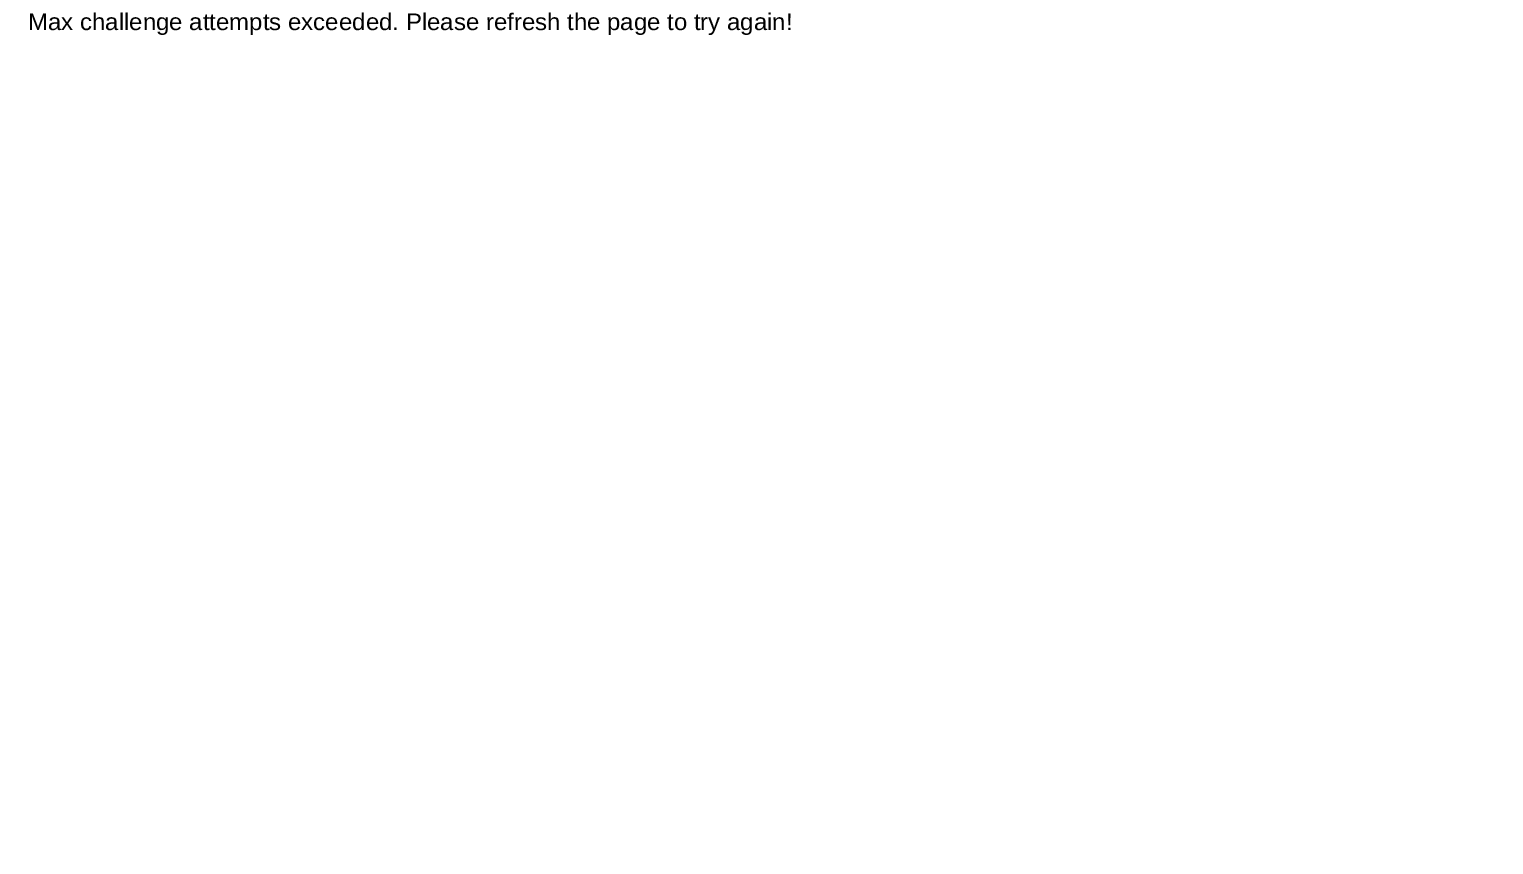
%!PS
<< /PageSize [1523 874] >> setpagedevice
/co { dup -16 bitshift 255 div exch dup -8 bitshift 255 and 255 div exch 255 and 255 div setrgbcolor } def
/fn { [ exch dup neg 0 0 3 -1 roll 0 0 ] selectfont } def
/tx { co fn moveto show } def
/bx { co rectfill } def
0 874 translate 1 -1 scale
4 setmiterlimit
0 0 1523 874 16#FFFFFF bx
(Max challenge attempts exceeded. Please refresh the page to try again!) 28 30 /LiberationSans-Regular 24 16#000000 tx
showpage
